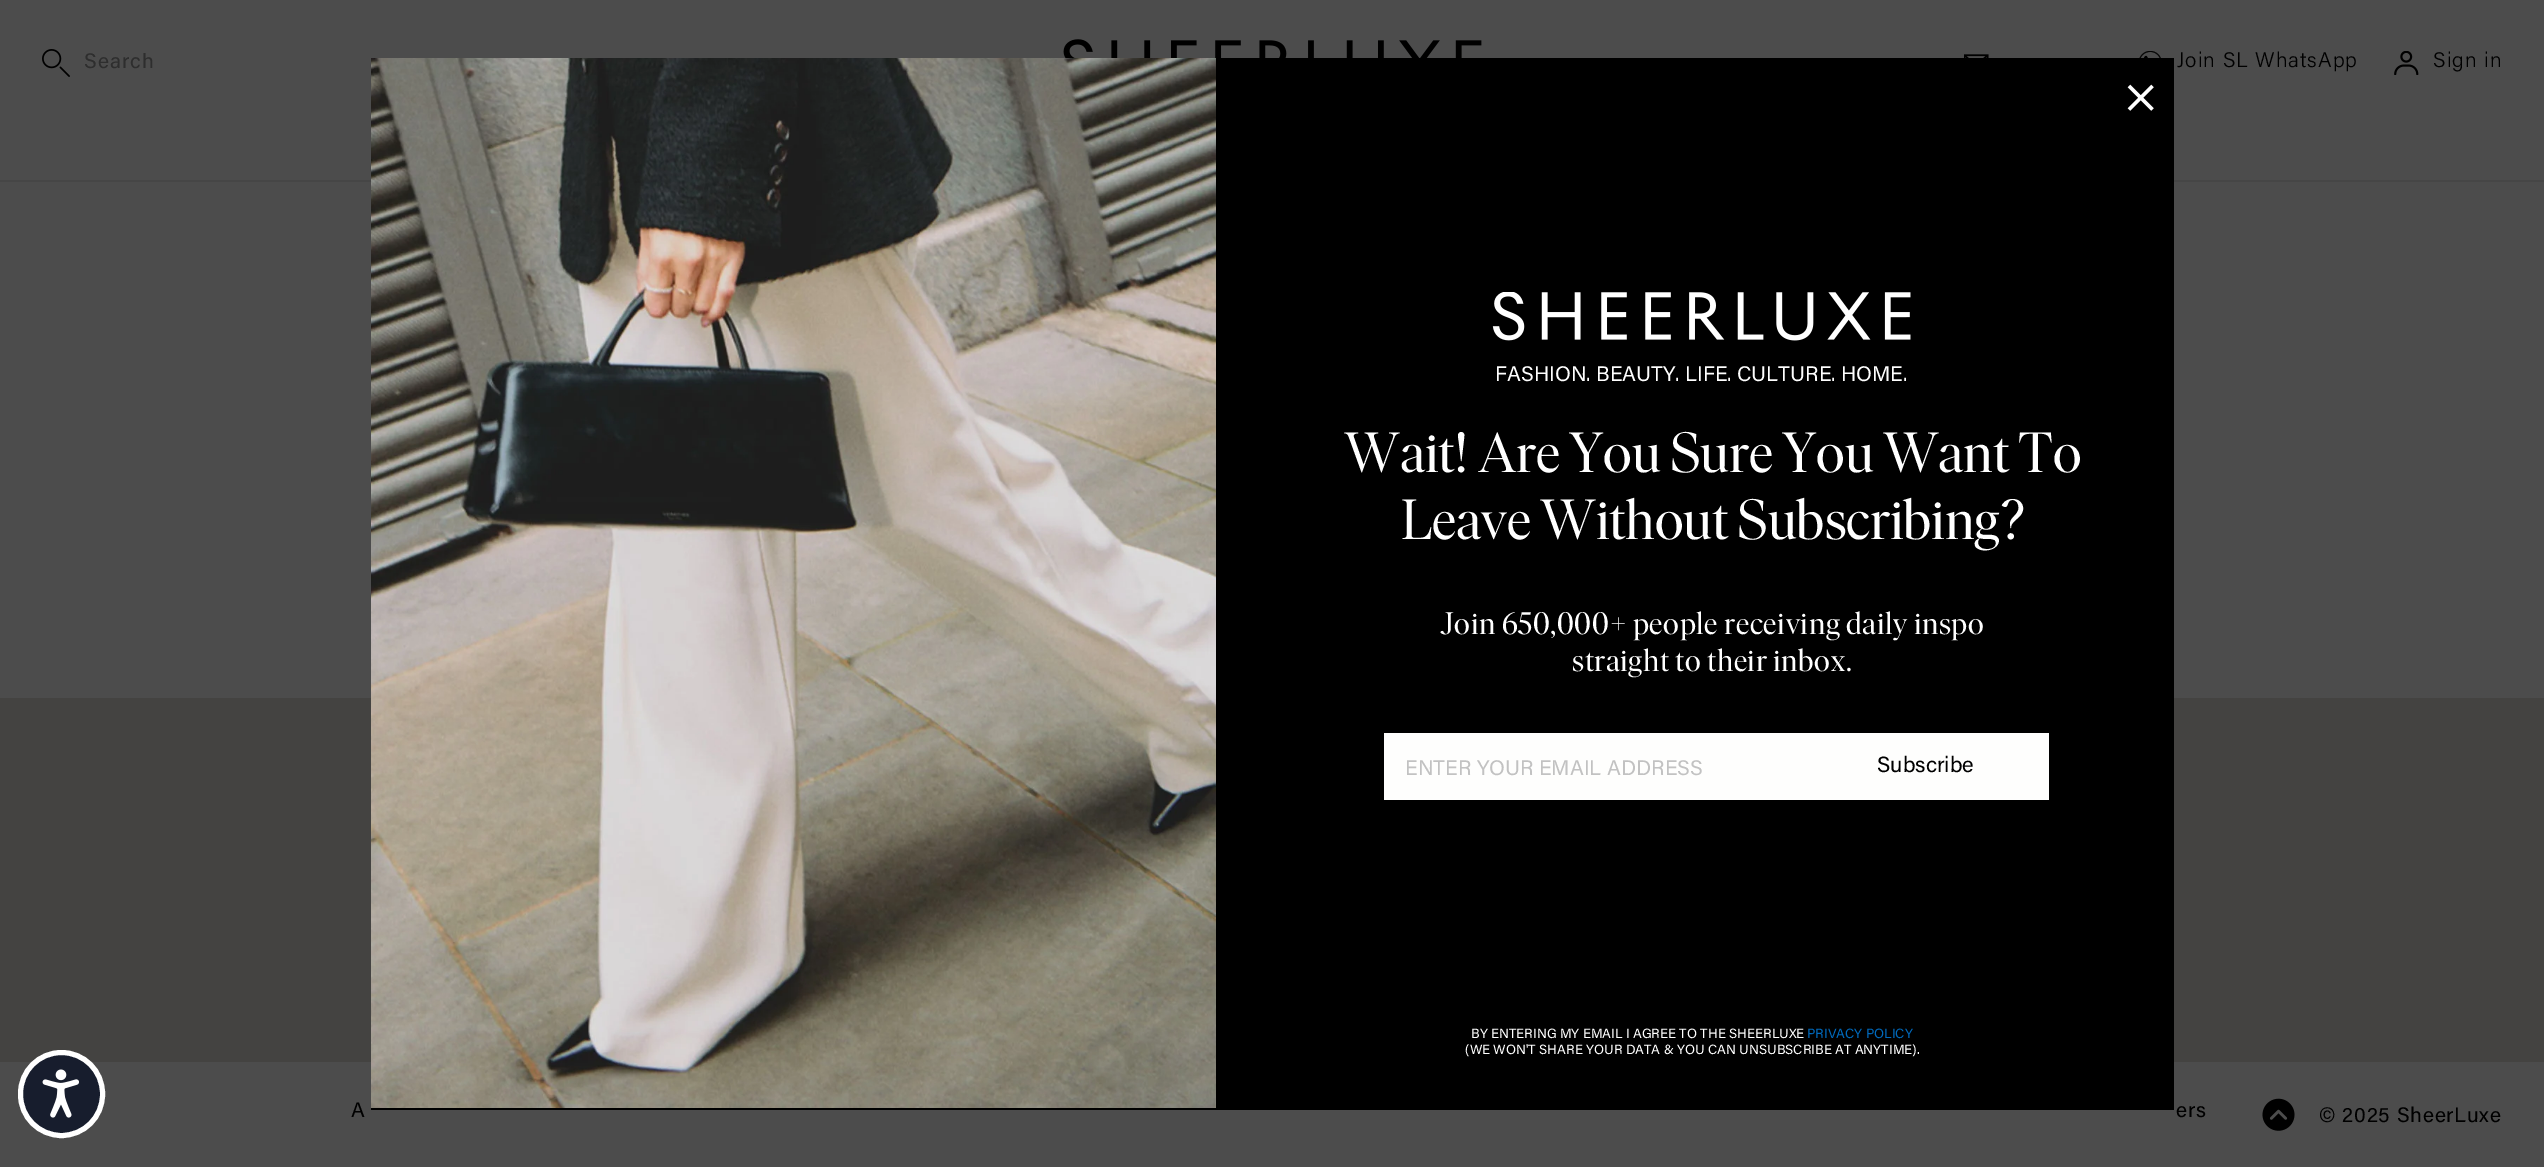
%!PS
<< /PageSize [2544 1167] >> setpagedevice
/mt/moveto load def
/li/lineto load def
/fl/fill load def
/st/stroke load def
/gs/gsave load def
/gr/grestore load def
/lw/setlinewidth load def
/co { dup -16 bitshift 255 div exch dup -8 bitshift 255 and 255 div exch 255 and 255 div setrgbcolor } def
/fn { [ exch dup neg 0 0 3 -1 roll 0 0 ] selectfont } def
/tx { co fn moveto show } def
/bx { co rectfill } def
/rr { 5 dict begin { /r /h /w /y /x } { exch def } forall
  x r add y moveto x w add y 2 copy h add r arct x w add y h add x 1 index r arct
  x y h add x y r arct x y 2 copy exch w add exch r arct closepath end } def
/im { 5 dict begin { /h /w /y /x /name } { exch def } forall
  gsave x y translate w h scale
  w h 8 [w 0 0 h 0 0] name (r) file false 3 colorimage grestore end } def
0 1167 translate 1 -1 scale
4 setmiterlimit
0 0 2544 1167 16#4C4C4C bx
0 180 2544 2 16#464646 bx
(media/1.raw) 1063 39 419 19 im
(media/2.raw) 42 49 28 28 im
(media/3.raw) 1964 54 25 4 im
(media/4.raw) 2139 51 22 7 im
(media/5.raw) 2394 51 25 24 im
0 698 2544 364 16#444341 bx
(media/6.raw) 2262 1098 33 33 im
371 58 1803 1052 16#000000 bx
(media/7.raw) 371 58 845 1050 im
16#FFFFFF co
3.3 lw
2129 86 mt 2152.5 109.5 li 2152.5 86 mt 2129 109.5 li st
(media/8.raw) 1492 292 419 49 im
1384 733 665 67 16#FEFEFD bx
16#171D2D co
20.5 1052.5 82 83 41 rr gs fl gr
16#FFFFFF co
5 lw
st
(media/9.raw) 42 1069 37 49 im
gs
84 53 315 21 rectclip
/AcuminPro-Regular 21 fn
16#2E2E2E co
84 68 mt 1 0 (Search) ashow
gr
/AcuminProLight-Light 21 fn
16#000000 co
2177 67 mt 1 0 (Join SL WhatsApp) ashow
2433 67 mt 1 0 (Sign in) ashow
/AcuminPro-Regular 21 fn
351 1117 mt .75 0 (A) ashow
2176 1117 mt .75 0 (ers) ashow
2319 1122 mt .75 0 (© 2025 SheerLuxe) ashow
(FASHION. BEAUTY. LIFE. CULTURE. HOME.) 1495 381 /AcuminPro-Regular 21.1 16#FFFFFF tx
(Wait! Are You Sure You Want To) 1344 472 /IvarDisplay-Regular 56.25 16#FFFFFF tx
(Leave Without Subscribing?) 1401 539 /IvarDisplay-Regular 56.25 16#FFFFFF tx
/IvarDisplay-Regular 31 fn
1440 634 mt .7 0 (Join 650,000+ people receiving daily inspo) ashow
1572 671 mt .7 0 (straight to their inbox.) ashow
(ENTER YOUR EMAIL ADDRESS) 1405 775 /AcuminPro-Regular 21.1 16#C2C2C2 tx
(Subscribe) 1877 772 /AcuminPro-Regular 22 16#000000 tx
(BY ENTERING MY EMAIL I AGREE TO THE SHEERLUXE) 1471 1038 /AcuminPro-Regular 13.4 16#FFFFFF tx
(PRIVACY POLICY) 1807 1038 /AcuminPro-Regular 13.4 16#006ABD tx
(\(WE WON'T SHARE YOUR DATA & YOU CAN UNSUBSCRIBE AT ANYTIME\).) 1465 1054 /AcuminPro-Regular 13.4 16#FFFFFF tx
showpage
